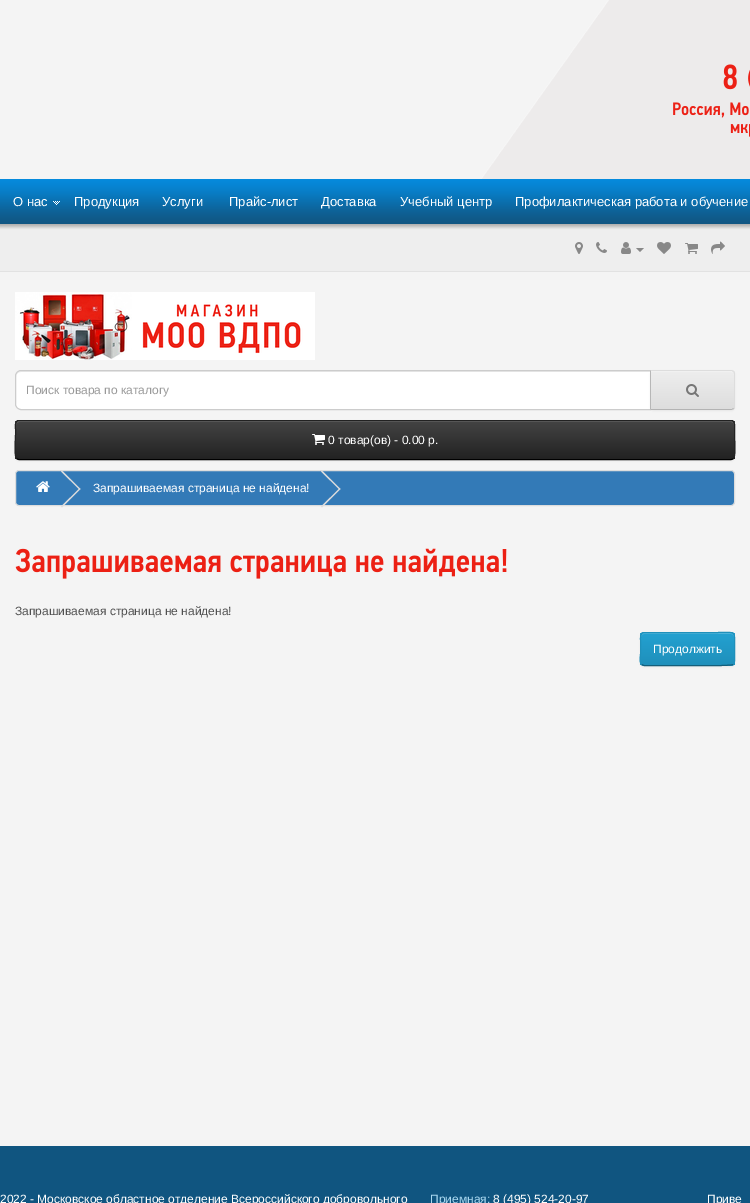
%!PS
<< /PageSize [750 1203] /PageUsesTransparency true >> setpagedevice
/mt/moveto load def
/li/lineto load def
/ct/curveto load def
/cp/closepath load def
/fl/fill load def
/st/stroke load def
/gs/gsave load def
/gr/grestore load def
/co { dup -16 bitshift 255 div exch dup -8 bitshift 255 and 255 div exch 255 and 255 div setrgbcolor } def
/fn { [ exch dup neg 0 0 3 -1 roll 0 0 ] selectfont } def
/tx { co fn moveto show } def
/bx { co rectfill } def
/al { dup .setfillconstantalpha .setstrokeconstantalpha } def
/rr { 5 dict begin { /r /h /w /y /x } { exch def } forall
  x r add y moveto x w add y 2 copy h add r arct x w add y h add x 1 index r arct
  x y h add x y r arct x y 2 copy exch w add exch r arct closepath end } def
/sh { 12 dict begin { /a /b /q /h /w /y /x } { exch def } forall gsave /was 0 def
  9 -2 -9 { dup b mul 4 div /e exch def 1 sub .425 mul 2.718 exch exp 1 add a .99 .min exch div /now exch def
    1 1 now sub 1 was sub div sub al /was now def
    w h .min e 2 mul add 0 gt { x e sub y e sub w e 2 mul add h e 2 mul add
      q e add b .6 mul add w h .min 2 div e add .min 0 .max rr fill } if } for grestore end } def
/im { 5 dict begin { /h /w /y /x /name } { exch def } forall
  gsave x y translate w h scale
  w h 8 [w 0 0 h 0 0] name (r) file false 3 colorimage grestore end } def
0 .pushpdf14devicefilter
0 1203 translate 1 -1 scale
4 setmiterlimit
0 0 750 1203 16#F4F4F4 bx
(media/1.raw) 482 0 268 179 im
(media/2.raw) 723 64 27 26 im
(media/3.raw) 673 102 76 16 im
(media/4.raw) 730 124 20 13 im
(media/5.raw) 0 179 750 51 im
(media/6.raw) 53 201 7 4 im
0 230 750 41 16#EEEEEE bx
0 271 750 1 16#E2E2E2 bx
(media/7.raw) 575 242 8 12 im
(media/8.raw) 596 242 11 11 im
(media/9.raw) 621 242 10 12 im
16#888888 co
636 248 mt 644 248 li 640 252 li cp fl
(media/10.raw) 657 242 14 12 im
(media/11.raw) 685 243 13 11 im
(media/12.raw) 711 241 14 13 im
(media/13.raw) 15 292 300 68 im
16#FFFFFF co
21 370 mt 651 370 li 651 410 li 21 410 li 17.5 410 15 407.5 15 404 ct 15 376 li 15 372.5 17.5 370 21 370 ct cp fl
16#ECECEC co
21 372 mt 650 372 li 650 371 li 21 371 li 18 371 16 374 16 377 ct 16 374 18 372 21 372 ct cp fl
16#CCCCCC co
21 370.5 mt 650.5 370.5 li 650.5 409.5 li 21 409.5 li 18 409.5 15.5 407 15.5 404 ct 15.5 376 li 15.5 373 18 370.5 21 370.5 ct cp st
16#000000 co
650 371 85 40 4 1 .05 sh
16#E7E7E7 co
650 370 mt 731 370 li 733 370 735 372 735 374 ct 735 406 li 735 408 733 410 731 410 ct 650 410 li cp fl
gs
650 370 mt 731 370 li 733 370 735 372 735 374 ct 735 406 li 735 408 733 410 731 410 ct 650 410 li cp clip newpath
gs 651 371 mt 735 371 li 735 409 li 651 409 li cp clip newpath
<< /ShadingType 2 /ColorSpace /DeviceRGB /Coords [693 371 693 409] /Extend [true true] /Function << /FunctionType 2 /Domain [0 1] /C0 [.933 .933 .933] /C1 [.867 .867 .867] /N 1 >> >> shfill gr
gr
16#F1F1F1 co
651 372 mt 731 372 li 733 372 734 373 734 375 ct 734 374 li 734 372 733 371 731 371 ct 651 371 li cp fl
16#DDDDDD co
650 370 mt 651 371 li 732 371 li 733 372 li 734 371 li 731 370 li cp fl
735 406 mt 735 374 li 735 373 734.5 372 734 371 ct 733 372 li 734 372 734 373 734 374 ct 734 406 li 734 407 734 408 733 408 ct 734 409 li 734.5 408 735 407 735 406 ct cp fl
16#B3B3B3 co
731 410 mt 734 409 li 733 408 li 732 409 li 651 409 li 650 410 li cp fl
16#B7B7B7 co
650 370 mt 650 410 li 651 409 li 651 371 li cp fl
(media/14.raw) 686 384 13 13 im
16#000000 co
15 421 720 40 4 1 .05 sh
gs
15 420 720 40 4 rr clip newpath
gs 15 421 mt 735 421 li 735 459 li 15 459 li cp clip newpath
<< /ShadingType 2 /ColorSpace /DeviceRGB /Coords [375 421 375 459] /Extend [true true] /Function << /FunctionType 2 /Domain [0 1] /C0 [.267 .267 .267] /C1 [.133 .133 .133] /N 1 >> >> shfill gr
gr
16#696969 co
19 422 mt 731 422 li 733 422 734 423 734 425 ct 734 423 733 421 731 421 ct 19 421 li 17 421 16 423 16 425 ct 16 423 17 422 19 422 ct cp fl
16#000000 co
733.5 458.5 mt 733 459 732 459.5 731 459.5 ct 19 459.5 li 18 459.5 17 459 16.5 458.5 ct st
16#222222 co
16.5 458.5 mt 14 456 15.5 438.5 15.5 434.5 ct 15.5 429.5 li 15.5 427 14.5 421.5 18 420.5 ct 732 420.5 li 735.5 421.5 734.5 427 734.5 429.5 ct 734.5 434.5 li 734.5 438.5 736 456 733.5 458.5 ct st
(media/15.raw) 312 434 13 11 im
16#337AB7 co
15.5 470.5 719 35 3.5 rr gs fl gr
16#DDDDDD co
st
(media/16.raw) 36 481 14 11 im
61 471.5 mt 62 470.5 li 80.5 489 li 79.5 489.5 li cp fl
61 506.5 mt 79.5 488.5 li 80.5 489 li 62 507.5 li cp fl
321 471.5 mt 322 470.5 li 340.5 489 li 339.5 489.5 li cp fl
321 506.5 mt 339.5 488.5 li 340.5 489 li 322 507.5 li cp fl
(media/17.raw) 15 548 492 31 im
16#000000 co
640 633 95 34 4 1 .05 sh
16#229AC8 co
640 632 95 34 4 rr fl
gs
640 632 95 34 4 rr clip newpath
gs 640 633 mt 735 633 li 735 665 li 640 665 li cp clip newpath
<< /ShadingType 2 /ColorSpace /DeviceRGB /Coords [688 633 688 665] /Extend [true true] /Function << /FunctionType 2 /Domain [0 1] /C0 [.137 .631 .82] /C1 [.122 .565 .733] /N 1 >> >> shfill gr
gr
0.2 al
16#FFFFFF co
644 634 mt 731 634 li 733 634 734 635 734 637 ct 734 629 720 633 716 633 ct 658 633 li 655 633 641 629 641 637 ct 641 635 642 634 644 634 ct cp fl
1 al
16#145E7A co
733.5 664.5 mt 733 664.5 li 731 666.5 667 665.5 658.5 665.5 ct 644 665.5 li 641.5 664.5 li st
16#1F90BB co
641.5 664.5 mt 639 662 640.5 656 640.5 653.5 ct 640.5 640.5 li 640.5 637.5 640 632.5 644 632.5 ct 716.5 632.5 li 737.5 632.5 734.5 629.5 734.5 649 ct 734.5 652 735.5 662 733.5 664.5 ct st
0 1146 750 57 16#105580 bx
(О нас) 13 206 /LiberationSans-Regular 13 16#FFFFFF tx
(Продукция) 74 206 /LiberationSans-Regular 13 16#FFFFFF tx
(Услуги) 162 206 /LiberationSans-Regular 13 16#FFFFFF tx
(Прайс-лист) 229 206 /LiberationSans-Regular 13 16#FFFFFF tx
(Доставка) 321 206 /LiberationSans-Regular 13 16#FFFFFF tx
(Учебный центр) 400 206 /LiberationSans-Regular 13 16#FFFFFF tx
(Профилактическая работа и обучение) 515 206 /LiberationSans-Regular 13 16#FFFFFF tx
(Поиск товара по каталогу) 26 394 /LiberationSans-Regular 12 16#999999 tx
(0 товар\(ов\) - 0.00 р.) 328 444 /LiberationSans-Regular 12 16#FFFFFF tx
(Запрашиваемая страница не найдена!) 93 492 /LiberationSans-Regular 12 16#FFFFFF tx
(Запрашиваемая страница не найдена!) 15 615 /LiberationSans-Regular 12 16#505050 tx
(Продолжить) 653 653 /LiberationSans-Regular 12 16#FFFFFF tx
(2022 - Московское областное отделение Всероссийского добровольного) 0 1203 /LiberationSans-Regular 12 16#FFFFFF tx
(Приемная:) 430 1203 /LiberationSans-Regular 12 16#AAD8F0 tx
(8 \(495\) 524-20-97) 493 1203 /LiberationSans-Regular 12 16#FFFFFF tx
(Приве) 707 1203 /LiberationSans-Regular 12 16#FFFFFF tx
.poppdf14devicefilter showpage
